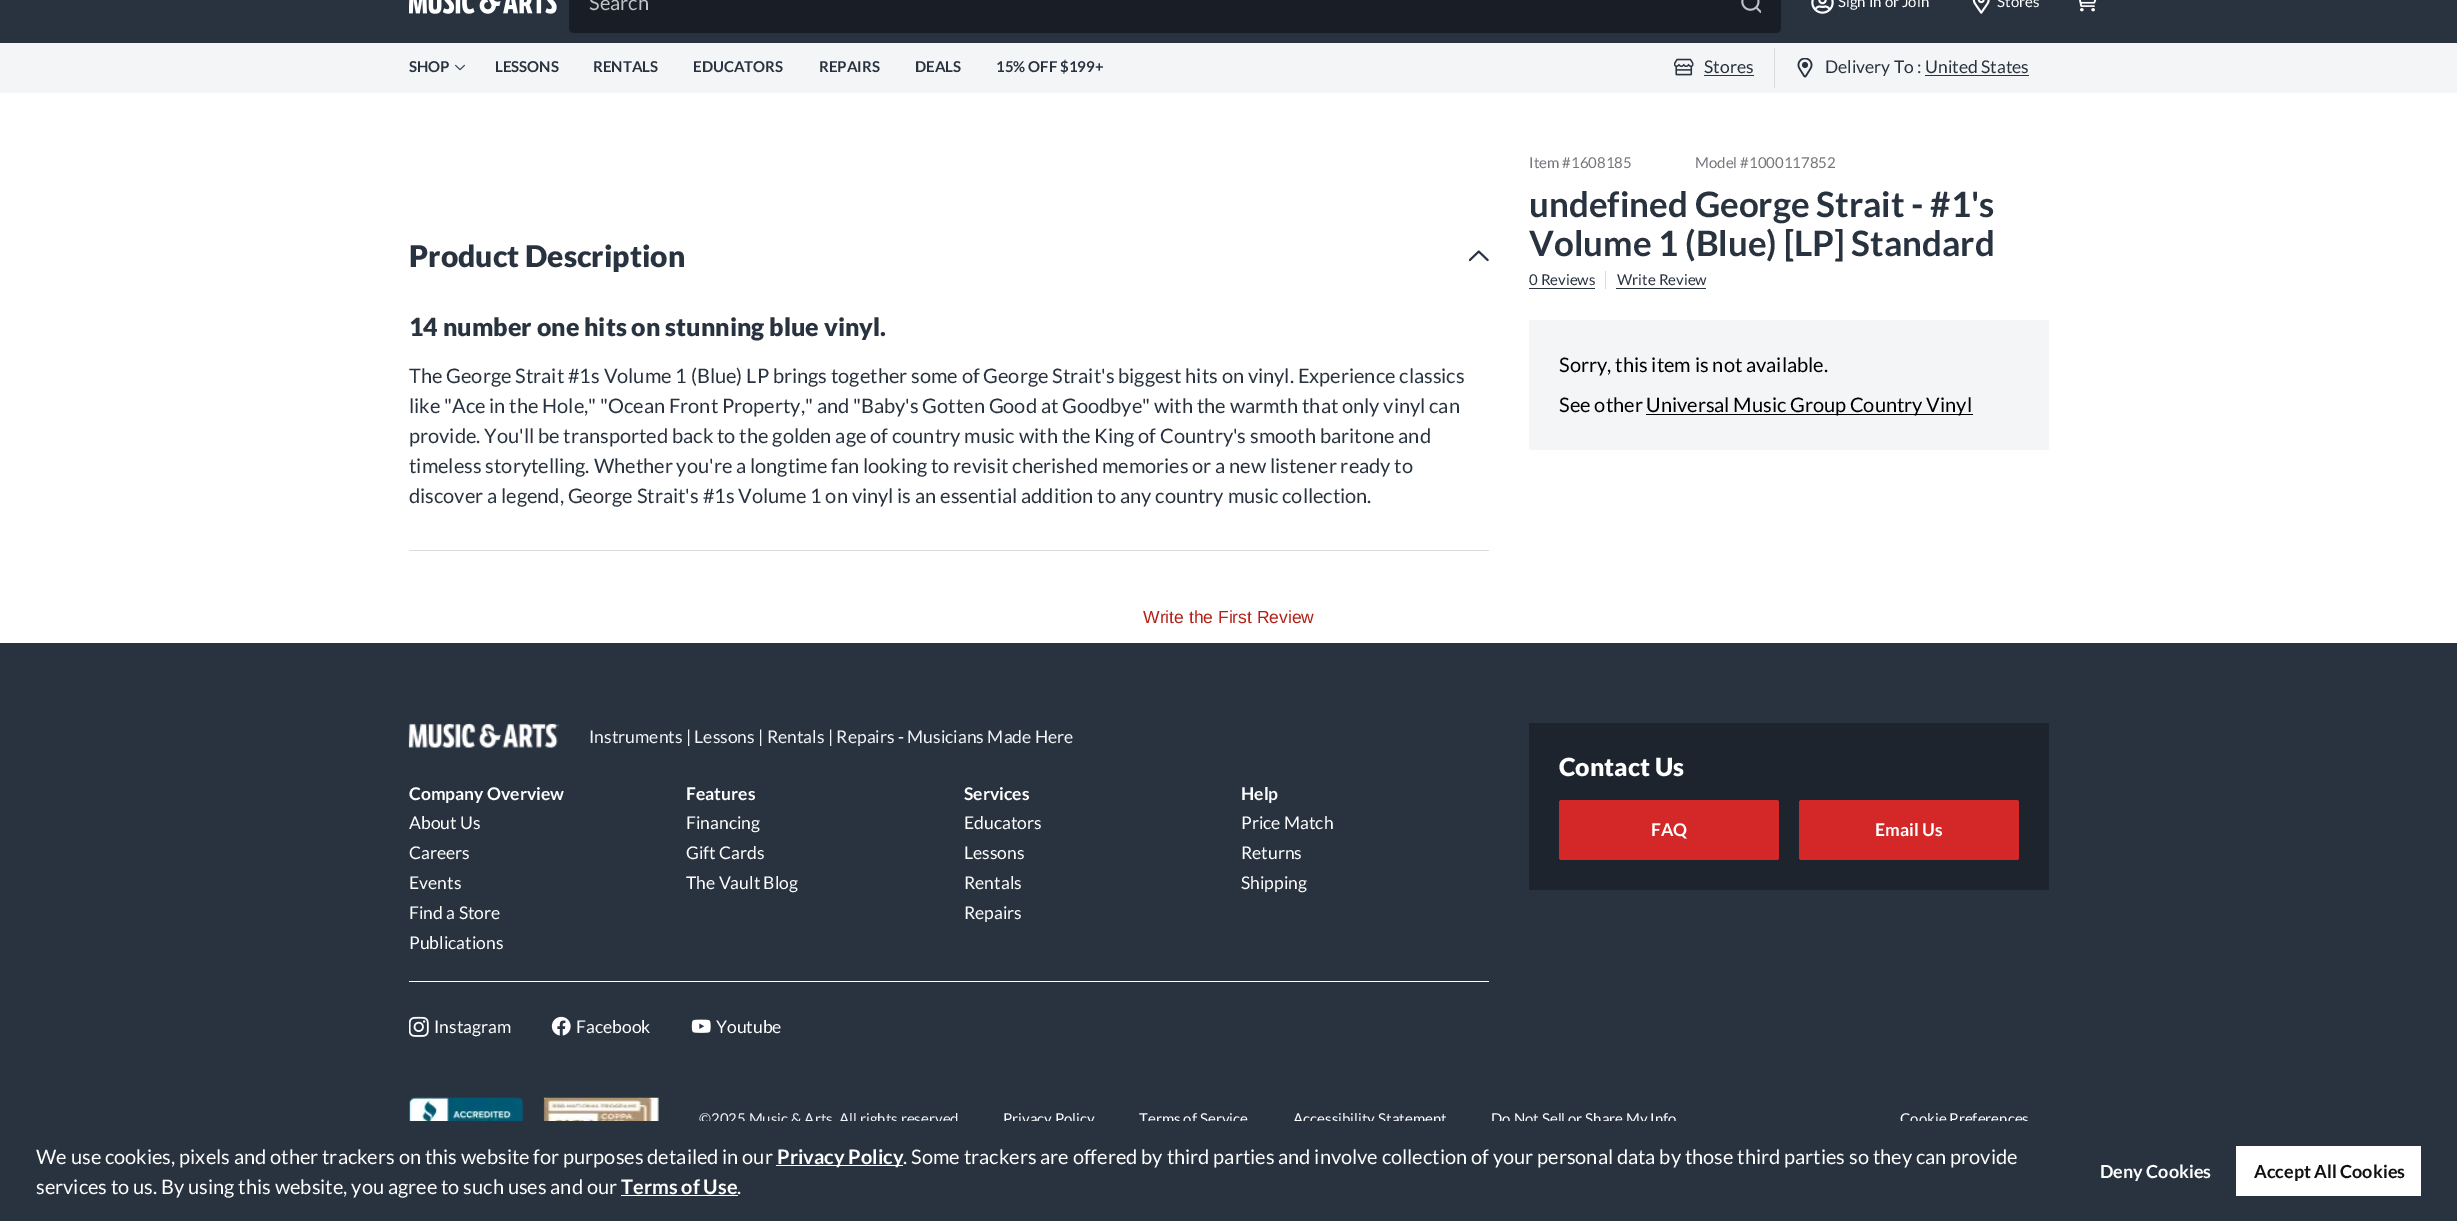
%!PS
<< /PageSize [2457 1221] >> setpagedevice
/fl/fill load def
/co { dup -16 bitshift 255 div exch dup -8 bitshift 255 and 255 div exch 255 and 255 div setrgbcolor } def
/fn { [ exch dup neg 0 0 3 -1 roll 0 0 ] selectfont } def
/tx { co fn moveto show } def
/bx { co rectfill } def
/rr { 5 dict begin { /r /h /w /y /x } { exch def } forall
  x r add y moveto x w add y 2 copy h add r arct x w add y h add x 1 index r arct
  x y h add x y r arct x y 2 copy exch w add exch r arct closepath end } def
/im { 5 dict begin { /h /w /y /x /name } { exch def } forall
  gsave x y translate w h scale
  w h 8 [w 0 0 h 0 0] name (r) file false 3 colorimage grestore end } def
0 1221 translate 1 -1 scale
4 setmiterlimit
0 0 2457 1221 16#FFFFFF bx
0 0 2457 43 16#293340 bx
(media/1.raw) 409 0 148 14 im
16#191E26 co
569 -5 1212 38 5 rr fl
(media/2.raw) 1741 0 20 13 im
(media/3.raw) 1811 0 23 14 im
(media/4.raw) 1972 0 18 14 im
(media/5.raw) 2079 0 18 12 im
0 43 2457 50 16#F4F5F7 bx
(media/6.raw) 455 64 10 7 im
(media/7.raw) 1674 58 20 18 im
1704 75 50 1 16#293340 bx
1774 48 1 40 16#D8DCE0 bx
(media/8.raw) 1797 58 16 20 im
1925 75 104 1 16#293340 bx
409 550 1080 1 16#D8DCE0 bx
(media/9.raw) 1469 250 20 12 im
1529 288 66 1 16#293340 bx
1605 271 1 18 16#D8DCE0 bx
1616 288 90 1 16#293340 bx
1529 320 520 130 16#F4F5F7 bx
1646 414 327 1 16#000000 bx
0 643 2457 478 16#293340 bx
(media/10.raw) 408 723 151 25 im
409 981 1080 1 16#FFFFFF bx
(media/11.raw) 409 1016 20 21 im
(media/12.raw) 551 1016 20 20 im
(media/13.raw) 691 1019 20 14 im
1529 723 520 167 16#1D242D bx
16#D42828 co
1559 800 220 60 2.5 rr fl
1799 800 220 60 2.5 rr fl
(media/14.raw) 409 1097 115 24 im
(media/15.raw) 543 1097 116 24 im
(Search) 589 10 /Lato-Regular 20 16#BCC3C9 tx
(Sign In or Join) 1838 7 /Lato-Regular 15 16#FFFFFF tx
(Stores) 1997 7 /Lato-Regular 15 16#FFFFFF tx
(SHOP) 409 72 /Lato-Bold 15 16#293340 tx
(LESSONS) 495 72 /Lato-Bold 15 16#293340 tx
(RENTALS) 593 72 /Lato-Bold 15 16#293340 tx
(EDUCATORS) 693 72 /Lato-Bold 15 16#293340 tx
(REPAIRS) 819 72 /Lato-Bold 15 16#293340 tx
(DEALS) 915 72 /Lato-Bold 15 16#293340 tx
(15% OFF $199+) 996 72 /Lato-Bold 15 16#293340 tx
(Stores) 1704 73 /Lato-Regular 17.5 16#293340 tx
(Delivery To : United States) 1825 73 /Lato-Regular 17.5 16#293340 tx
(Product Description) 409 267 /Lato-Black 30 16#293340 tx
(14 number one hits on stunning blue vinyl.) 409 336 /Lato-Black 25 16#293340 tx
(The George Strait #1s Volume 1 \(Blue\) LP brings together some of George Strait's biggest hits on vinyl. Experience classics) 409 383 /Lato-Regular 20 16#293340 tx
(like "Ace in the Hole," "Ocean Front Property," and "Baby's Gotten Good at Goodbye" with the warmth that only vinyl can) 409 413 /Lato-Regular 20 16#293340 tx
(provide. You'll be transported back to the golden age of country music with the King of Country's smooth baritone and) 409 443 /Lato-Regular 20 16#293340 tx
(timeless storytelling. Whether you're a longtime fan looking to revisit cherished memories or a new listener ready to) 409 473 /Lato-Regular 20 16#293340 tx
(discover a legend, George Strait's #1s Volume 1 on vinyl is an essential addition to any country music collection.) 409 503 /Lato-Regular 20 16#293340 tx
(Item #1608185) 1529 168 /Lato-Regular 15 16#75757C tx
(Model #1000117852) 1695 168 /Lato-Regular 15 16#75757C tx
(undefined George Strait - #1's) 1529 217 /Lato-Bold 35 16#293340 tx
(Volume 1 \(Blue\) [LP] Standard) 1529 256 /Lato-Bold 35 16#293340 tx
(0 Reviews) 1529 285 /Lato-Regular 15 16#293340 tx
(Write Review) 1617 285 /Lato-Regular 15 16#293340 tx
(Sorry, this item is not available.) 1559 372 /Lato-Regular 20 16#000000 tx
(See other) 1559 412 /Lato-Regular 20 16#000000 tx
(Universal Music Group Country Vinyl) 1646 412 /Lato-Regular 20 16#000000 tx
(Write the First Review) 1143 623 /LiberationSans-Regular 17.5 16#B32017 tx
(Instruments | Lessons | Rentals | Repairs - Musicians Made Here) 589 743 /Lato-Regular 17.5 16#F3F4F6 tx
(Company Overview) 409 800 /Lato-Bold 17.5 16#FFFFFF tx
(About Us) 409 829 /Lato-Regular 17.5 16#FFFFFF tx
(Careers) 409 859 /Lato-Regular 17.5 16#FFFFFF tx
(Events) 409 889 /Lato-Regular 17.5 16#FFFFFF tx
(Find a Store) 409 919 /Lato-Regular 17.5 16#FFFFFF tx
(Publications) 409 949 /Lato-Regular 17.5 16#FFFFFF tx
(Features) 686 800 /Lato-Bold 17.5 16#FFFFFF tx
(Financing) 686 829 /Lato-Regular 17.5 16#FFFFFF tx
(Gift Cards) 686 859 /Lato-Regular 17.5 16#FFFFFF tx
(The Vault Blog) 686 889 /Lato-Regular 17.5 16#FFFFFF tx
(Services) 964 800 /Lato-Bold 17.5 16#FFFFFF tx
(Educators) 964 829 /Lato-Regular 17.5 16#FFFFFF tx
(Lessons) 964 859 /Lato-Regular 17.5 16#FFFFFF tx
(Rentals) 964 889 /Lato-Regular 17.5 16#FFFFFF tx
(Repairs) 964 919 /Lato-Regular 17.5 16#FFFFFF tx
(Help) 1241 800 /Lato-Bold 17.5 16#FFFFFF tx
(Price Match) 1241 829 /Lato-Regular 17.5 16#FFFFFF tx
(Returns) 1241 859 /Lato-Regular 17.5 16#FFFFFF tx
(Shipping) 1241 889 /Lato-Regular 17.5 16#FFFFFF tx
(Instagram) 434 1033 /Lato-Regular 17.5 16#FFFFFF tx
(Facebook) 576 1033 /Lato-Regular 17.5 16#FFFFFF tx
(Youtube) 716 1033 /Lato-Regular 17.5 16#FFFFFF tx
(Contact Us) 1559 776 /Lato-Black 25 16#FFFFFF tx
(FAQ) 1651 836 /Lato-Bold 17.5 16#FFFFFF tx
(Email Us) 1875 836 /Lato-Bold 17.5 16#FFFFFF tx
(©2025 Music & Arts. All rights reserved) 699 1124 /Lato-Regular 15 16#F3F4F6 tx
(Privacy Policy) 1003 1124 /Lato-Regular 15 16#FFFFFF tx
(Terms of Service) 1139 1124 /Lato-Regular 15 16#FFFFFF tx
(Accessibility Statement) 1293 1124 /Lato-Regular 15 16#FFFFFF tx
(Do Not Sell or Share My Info) 1491 1124 /Lato-Regular 15 16#FFFFFF tx
(Cookie Preferences) 1900 1124 /Lato-Regular 15 16#FFFFFF tx
0 1121 2457 100 16#293340 bx
(We use cookies, pixels and other trackers on this website for purposes detailed in our) 36 1164 /Lato-Regular 20 16#FFFFFF tx
776 1165 127 1 16#FFFFFF bx
(Privacy Policy) 777 1164 /Lato-Bold 20 16#FFFFFF tx
(. Some trackers are offered by third parties and involve collection of your personal data by those third parties so they can provide) 903 1164 /Lato-Regular 20 16#FFFFFF tx
(services to us. By using this website, you agree to such uses and our) 36 1194 /Lato-Regular 20 16#FFFFFF tx
(Terms of Use) 621 1194 /Lato-Bold 20 16#FFFFFF tx
621 1195 117 1 16#FFFFFF bx
(.) 737 1194 /Lato-Regular 20 16#FFFFFF tx
(Deny Cookies) 2100 1178 /Lato-Bold 18 16#FFFFFF tx
2236 1146 185 50 16#FFFFFF bx
(Accept All Cookies) 2254 1178 /Lato-Bold 18 16#121010 tx
showpage
